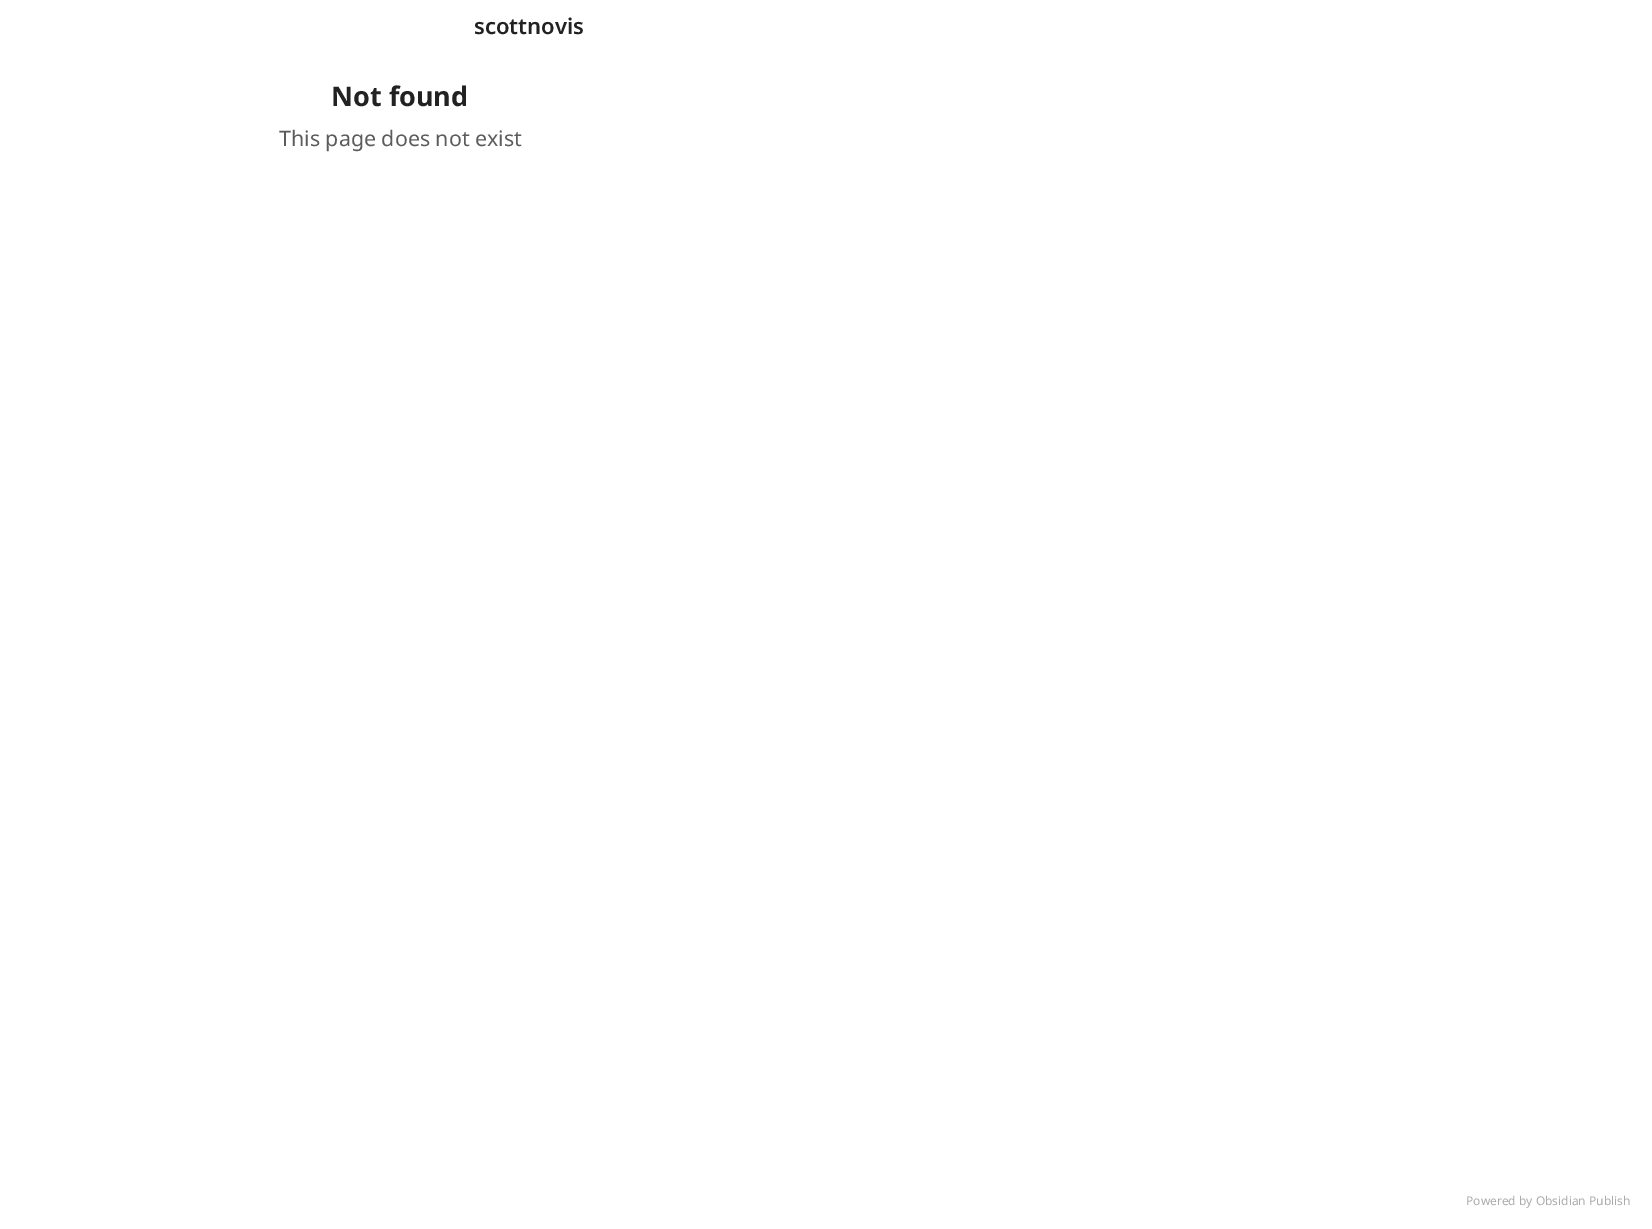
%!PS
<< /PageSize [1652 1229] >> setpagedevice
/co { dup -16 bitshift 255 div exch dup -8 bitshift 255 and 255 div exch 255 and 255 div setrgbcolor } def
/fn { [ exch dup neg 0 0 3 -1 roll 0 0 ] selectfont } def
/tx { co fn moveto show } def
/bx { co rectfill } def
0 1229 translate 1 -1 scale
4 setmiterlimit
0 0 1652 1229 16#FFFFFF bx
(scottnovis) 474 34 /NotoSans-SemiBold 22 16#222222 tx
(Not found) 331 106 /NotoSans-Bold 27 16#222222 tx
(This page does not exist) 279 146 /NotoSans-Regular 21.4 16#5C5C5C tx
(Powered by Obsidian Publish) 1466 1205 /NotoSans-Regular 12 16#ABABAB tx
showpage
